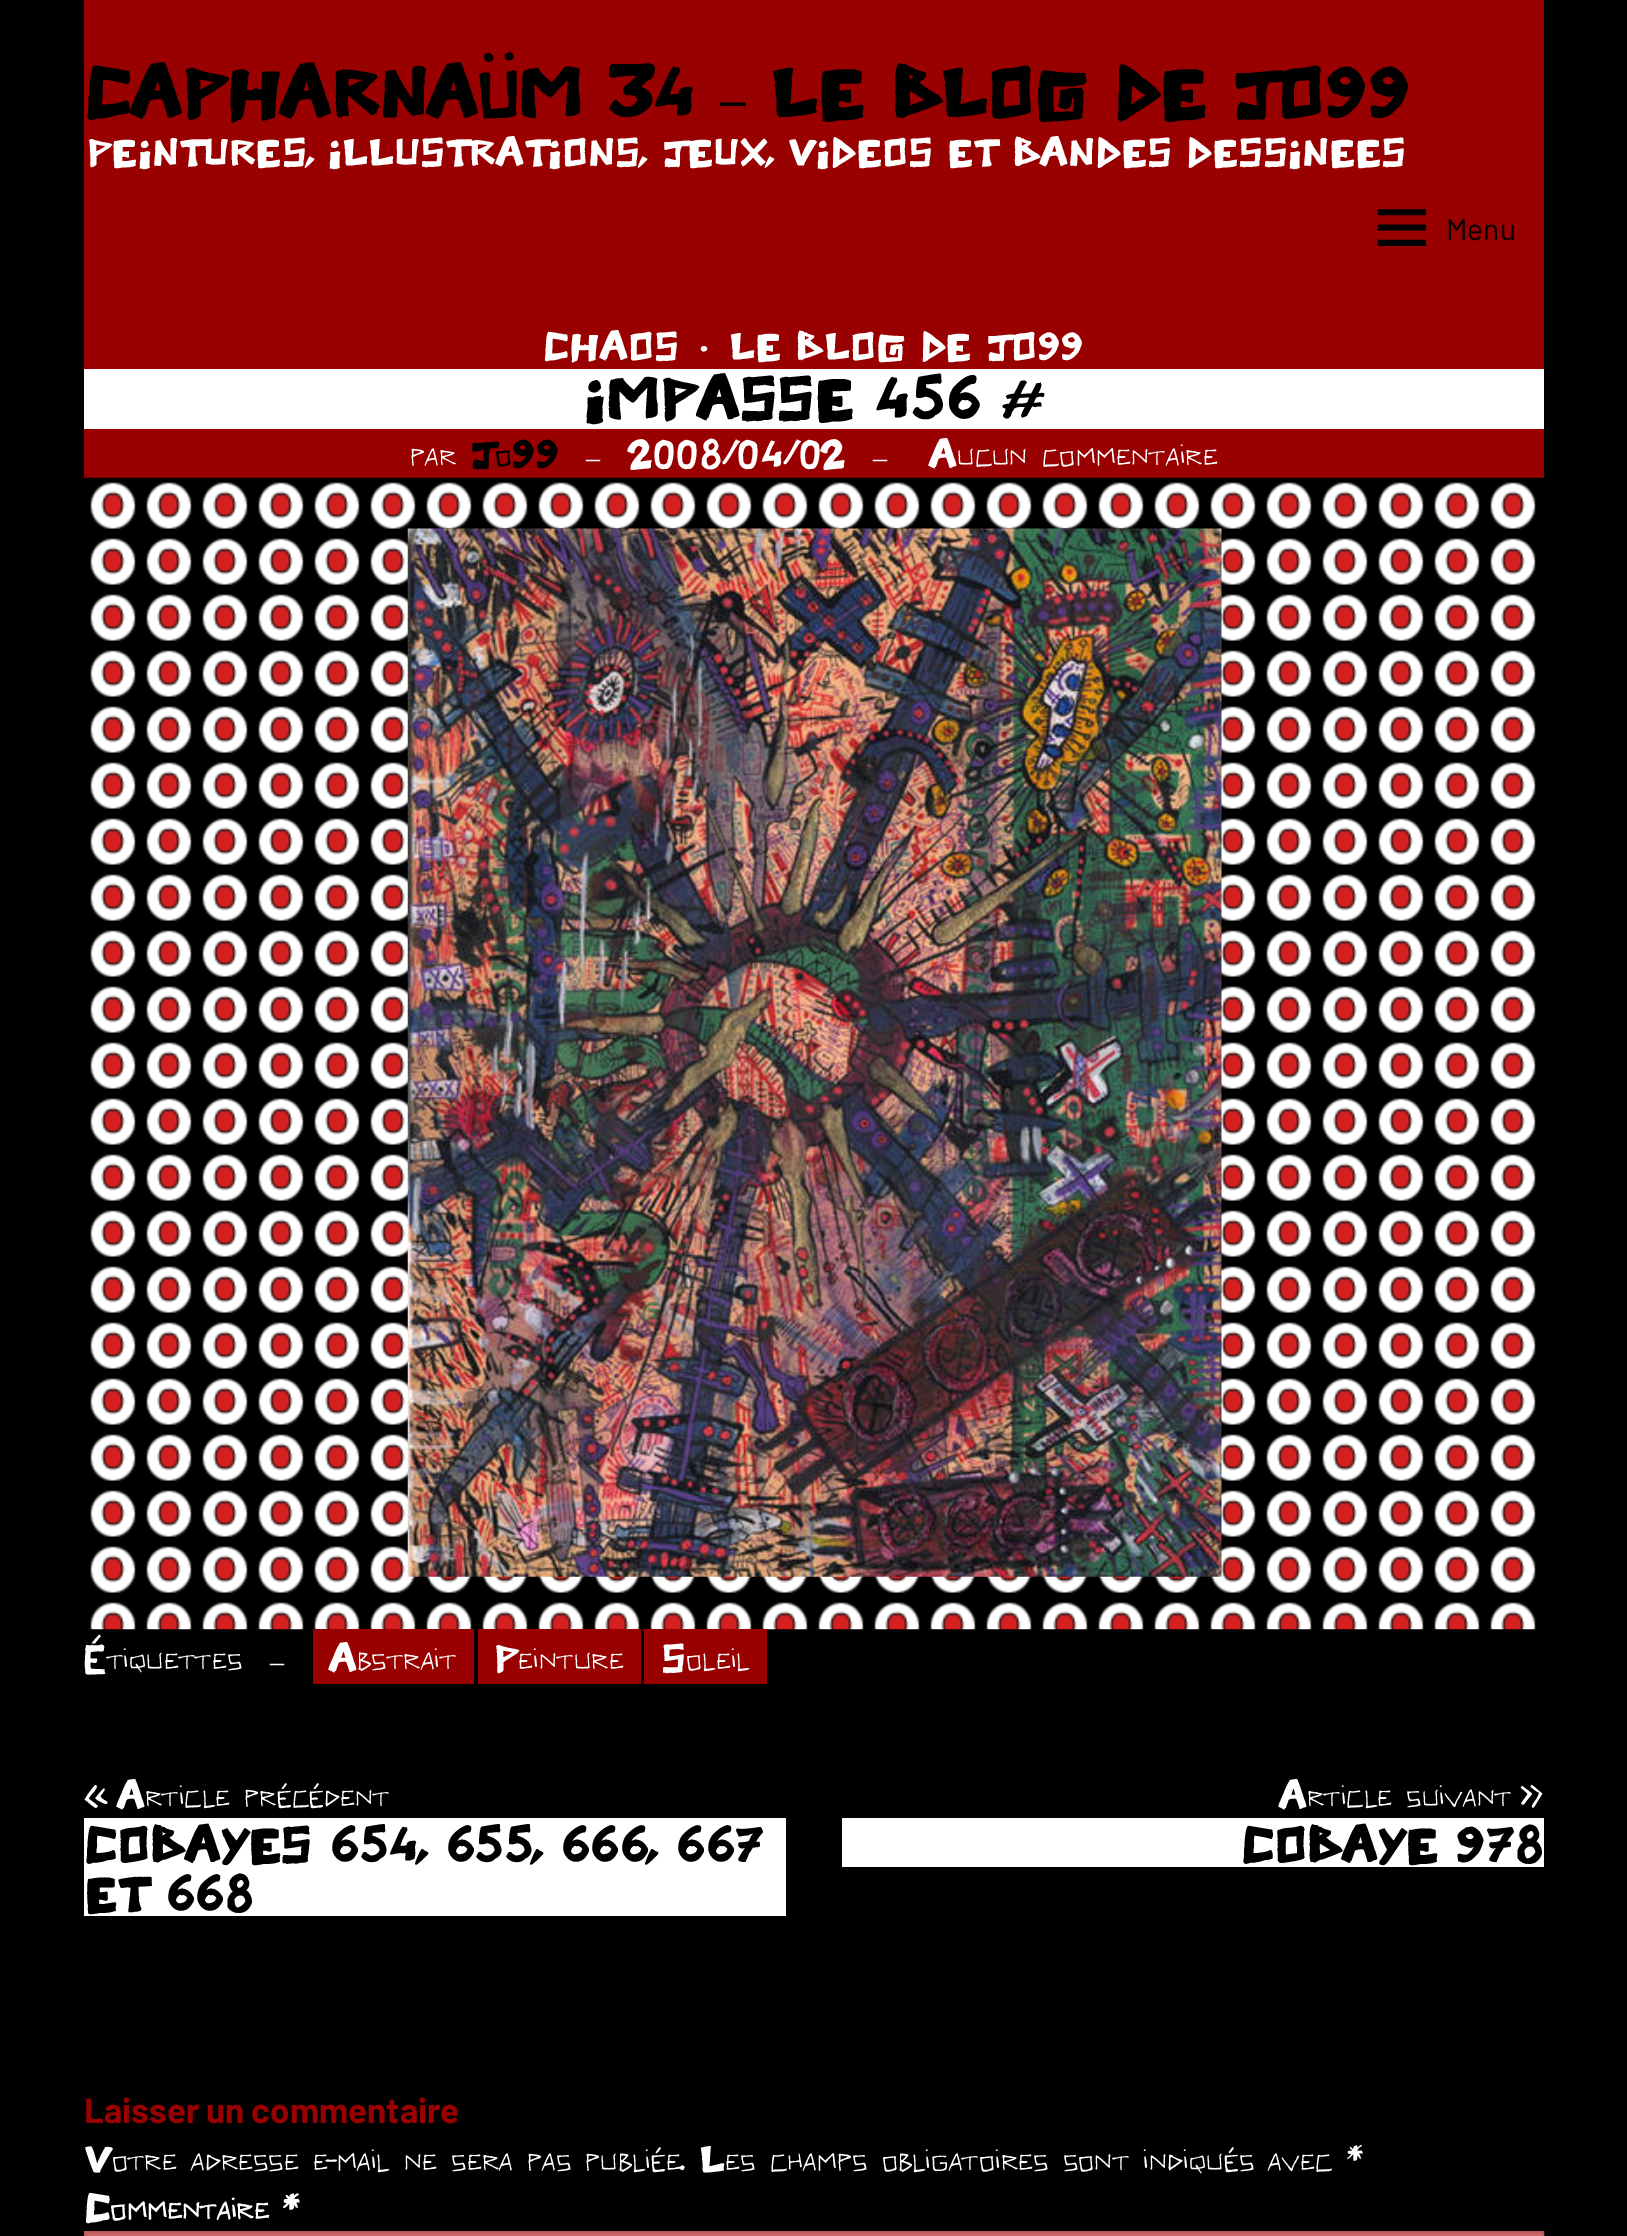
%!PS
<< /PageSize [1627 2236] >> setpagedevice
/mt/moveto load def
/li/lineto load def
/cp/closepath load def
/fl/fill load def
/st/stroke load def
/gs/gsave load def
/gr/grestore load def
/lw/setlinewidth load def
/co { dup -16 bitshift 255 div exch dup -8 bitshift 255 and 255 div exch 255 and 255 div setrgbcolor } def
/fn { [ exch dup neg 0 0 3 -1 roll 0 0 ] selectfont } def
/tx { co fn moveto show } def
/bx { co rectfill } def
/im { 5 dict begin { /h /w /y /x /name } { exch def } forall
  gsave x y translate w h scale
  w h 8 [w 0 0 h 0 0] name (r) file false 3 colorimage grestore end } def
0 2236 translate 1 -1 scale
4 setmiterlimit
0 0 1627 2236 16#000000 bx
84 0 1460 369 16#990000 bx
(media/1.raw) 1377 209 49 37 im
84 369 1460 60 16#FFFFFF bx
84 429 1460 49 16#990000 bx
(media/2.raw) 84 477 1460 1153 im
(media/3.raw) 407 528 815 1049 im
313 1629 161 55 16#990000 bx
478 1629 163 55 16#990000 bx
644 1629 123 55 16#990000 bx
84 1818 702 98 16#FFFFFF bx
842 1818 702 49 16#FFFFFF bx
16#CC6666 co
85 2232 mt 1543 2232 li 1543 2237 li 85 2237 li cp gs fl gr
16#B85C5C co
2 lw
st
(CAPHARNAÜM 34) 84 116 /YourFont-Bold 50.4 16#000000 tx
(–) 720 116 /LiberationSerif-Bold 50.4 16#000000 tx
(LE BLOG DE JO99) 770 116 /YourFont-Bold 50.4 16#000000 tx
(PEINTURES, ILLUSTRATIONS, JEUX, VIDEOS ET BANDES DESSINEES) 87 165 /YourFont-Regular 28 16#FFFFFF tx
(Menu) 1446 240 /Barlow-Regular 30 16#000000 tx
(CHAOS) 543 359 /YourFont-Regular 28 16#FFFFFF tx
(•) 700 359 /YourFont-Regular 28 16#FFFFFF tx
(LE BLOG DE JO99) 729 359 /YourFont-Regular 28 16#FFFFFF tx
(IMPASSE 456 #) 584 418 /YourFont-Bold 42 16#000000 tx
(par) 410 467 /YourFont-Regular 28 16#FFFFFF tx
(Jo99) 470 467 /YourFont-Bold 28 16#000000 tx
(–) 586 467 /LiberationSerif-Regular 28 16#FFFFFF tx
(2008/04/02) 628 467 /YourFont-Regular 28 16#FFFFFF tx
(–) 873 467 /LiberationSerif-Regular 28 16#FFFFFF tx
(Aucun commentaire) 929 467 /YourFont-Regular 28 16#FFFFFF tx
(Étiquettes) 84 1671 /YourFont-Regular 28 16#FFFFFF tx
(–) 270 1671 /LiberationSerif-Regular 28 16#FFFFFF tx
(Abstrait) 329 1671 /YourFont-Regular 28 16#FFFFFF tx
(Peinture) 494 1671 /YourFont-Regular 28 16#FFFFFF tx
(Soleil) 661 1671 /YourFont-Regular 28 16#FFFFFF tx
(«) 84 1808 /YourFont-Regular 28 16#FFFFFF tx
(Article précédent) 117 1808 /YourFont-Regular 28 16#FFFFFF tx
(COBAYES 654, 655, 666, 667) 84 1861 /YourFont-Bold 35 16#000000 tx
(ET 668) 84 1910 /YourFont-Bold 35 16#000000 tx
(Article suivant) 1279 1808 /YourFont-Regular 28 16#FFFFFF tx
(») 1520 1808 /YourFont-Regular 28 16#FFFFFF tx
(COBAYE 978) 1241 1861 /YourFont-Bold 35 16#000000 tx
(Laisser un commentaire) 84 2123 /Barlow-Bold 35 16#990000 tx
(Votre adresse e-mail ne sera pas publiée. Les champs obligatoires sont indiqués avec *) 84 2172 /YourFont-Regular 28 16#FFFFFF tx
(Commentaire *) 84 2221 /YourFont-Bold 28 16#FFFFFF tx
showpage
